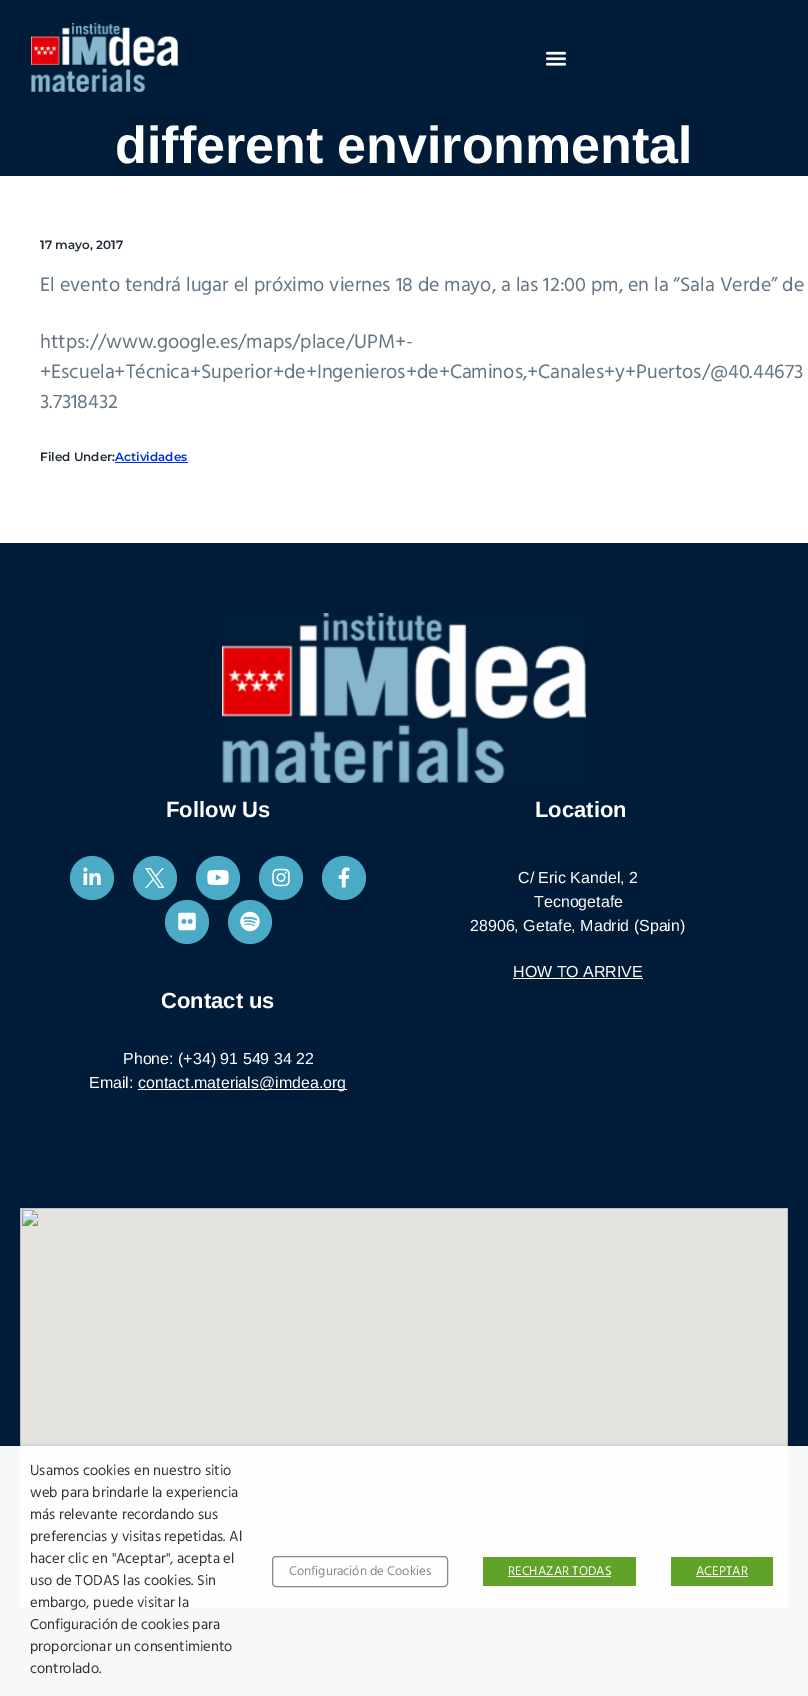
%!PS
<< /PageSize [808 1696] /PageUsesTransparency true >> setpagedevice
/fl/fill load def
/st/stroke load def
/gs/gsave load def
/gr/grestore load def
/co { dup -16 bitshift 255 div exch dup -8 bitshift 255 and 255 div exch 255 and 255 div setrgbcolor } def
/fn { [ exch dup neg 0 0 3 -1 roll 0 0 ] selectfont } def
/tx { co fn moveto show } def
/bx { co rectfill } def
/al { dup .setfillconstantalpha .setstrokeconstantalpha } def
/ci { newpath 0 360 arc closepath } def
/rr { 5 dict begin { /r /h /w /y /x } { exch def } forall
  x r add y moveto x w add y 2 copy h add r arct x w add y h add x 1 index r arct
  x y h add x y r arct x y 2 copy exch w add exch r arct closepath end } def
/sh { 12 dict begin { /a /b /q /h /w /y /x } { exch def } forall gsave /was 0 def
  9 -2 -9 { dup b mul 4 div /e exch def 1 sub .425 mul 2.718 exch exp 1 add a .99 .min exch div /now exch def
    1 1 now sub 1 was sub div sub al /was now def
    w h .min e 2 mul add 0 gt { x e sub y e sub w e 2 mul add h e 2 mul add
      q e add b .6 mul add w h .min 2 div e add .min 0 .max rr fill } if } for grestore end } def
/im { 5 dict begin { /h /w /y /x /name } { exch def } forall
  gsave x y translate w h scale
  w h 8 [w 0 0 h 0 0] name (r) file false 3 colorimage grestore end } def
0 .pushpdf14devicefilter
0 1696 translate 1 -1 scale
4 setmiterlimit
0 0 808 1696 16#FFFFFF bx
0 115 808 61 16#001C38 bx
16#000000 co
0 0 808 115 0 19 .1 sh
0 0 808 115 16#001C38 bx
(media/1.raw) 31 23 147 69 im
(media/2.raw) 545 51 22 15 im
115 462 73 1 16#0031D5 bx
0 543 808 1115 16#001C38 bx
(media/3.raw) 222 613 364 170 im
16#4BABC6 co
92 878 22 ci fl
(media/4.raw) 83 867 18 18 im
155 878 22 ci fl
(media/5.raw) 145 868 20 20 im
218 878 22 ci fl
(media/6.raw) 207 870 22 15 im
281 878 22 ci fl
(media/7.raw) 272 868 18 19 im
344 878 22 ci fl
(media/8.raw) 338 867 12 21 im
187 922 22 ci fl
(media/9.raw) 178 912 18 19 im
250 922 22 ci fl
(media/10.raw) 240 911 20 21 im
138 1089 209 1 16#FFFFFF bx
513 978 130 1 16#FFFFFF bx
(media/11.raw) 20 1208 768 400 im
0 1659 808 37 16#001C38 bx
0 1658 808 1 16#30475E bx
gs
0 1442 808 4 rectclip
16#000000 co
0 1451 808 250 0 5 .5 sh
gr
0.97 al
0 1446 808 250 16#FFFFFF bx
1 al
16#898888 co
272.5 1556.5 175 30 3.5 rr st
483 1557 153 29 16#61A229 bx
508 1576 103 1 16#FFFFFF bx
671 1557 102 29 16#61A229 bx
696 1576 52 1 16#FFFFFF bx
(different environmental) 115 163 /LiberationSans-Bold 52 16#FFFFFF tx
(17 mayo, 2017) 40 249 /Montserrat-Thin 12 16#232C39 tx
(El evento tendrá lugar el próximo viernes 18 de mayo, a las 12:00 pm, en la “Sala Verde” de) 40 291 /Hind-Regular 20 16#647585 tx
(https://www.google.es/maps/place/UPM+-) 40 348 /Hind-Regular 20 16#647585 tx
(+Escuela+Técnica+Superior+de+Ingenieros+de+Caminos,+Canales+y+Puertos/@40.44673) 40 378 /Hind-Regular 20 16#647585 tx
(3.7318432) 40 408 /Hind-Regular 20 16#647585 tx
(Filed Under:) 40 461 /Montserrat-Thin 12 16#232C39 tx
(Actividades) 115 461 /Montserrat-Thin 12 16#0031D5 tx
(Follow Us) 166 817 /LiberationSans-Bold 22 16#FFFFFF tx
(Contact us) 161 1008 /LiberationSans-Bold 22 16#FFFFFF tx
(Phone: \(+34\) 91 549 34 22) 123 1064 /LiberationSans-Regular 16 16#FFFFFF tx
(Email:) 89 1088 /LiberationSans-Regular 16 16#FFFFFF tx
(contact.materials@imdea.org) 138 1088 /LiberationSans-Regular 16 16#FFFFFF tx
(Location) 535 817 /LiberationSans-Bold 22 16#FFFFFF tx
(C/ Eric Kandel, 2) 518 883 /LiberationSans-Regular 16 16#FFFFFF tx
(Tecnogetafe) 534 907 /LiberationSans-Regular 16 16#FFFFFF tx
(28906, Getafe, Madrid \(Spain\)) 470 931 /LiberationSans-Regular 16 16#FFFFFF tx
(HOW TO ARRIVE) 513 977 /LiberationSans-Regular 16 16#FFFFFF tx
(Usamos cookies en nuestro sitio) 30 1475 /Hind-Regular 14.7 16#333333 tx
(web para brindarle la experiencia) 30 1497 /Hind-Regular 14.7 16#333333 tx
(más relevante recordando sus) 30 1519 /Hind-Regular 14.7 16#333333 tx
(preferencias y visitas repetidas. Al) 30 1541 /Hind-Regular 14.7 16#333333 tx
(hacer clic en "Aceptar", acepta el) 30 1563 /Hind-Regular 14.7 16#333333 tx
(uso de TODAS las cookies. Sin) 30 1585 /Hind-Regular 14.7 16#333333 tx
(embargo, puede visitar la) 30 1607 /Hind-Regular 14.7 16#333333 tx
(Configuración de cookies para) 30 1629 /Hind-Regular 14.7 16#333333 tx
(proporcionar un consentimiento) 30 1651 /Hind-Regular 14.7 16#333333 tx
(controlado.) 30 1673 /Hind-Regular 14.7 16#333333 tx
(Configuración de Cookies) 289 1575 /Hind-Regular 13 16#898888 tx
(RECHAZAR TODAS) 508 1575 /Hind-Regular 13 16#FFFFFF tx
(ACEPTAR) 696 1575 /Hind-Regular 13 16#FFFFFF tx
.poppdf14devicefilter showpage
